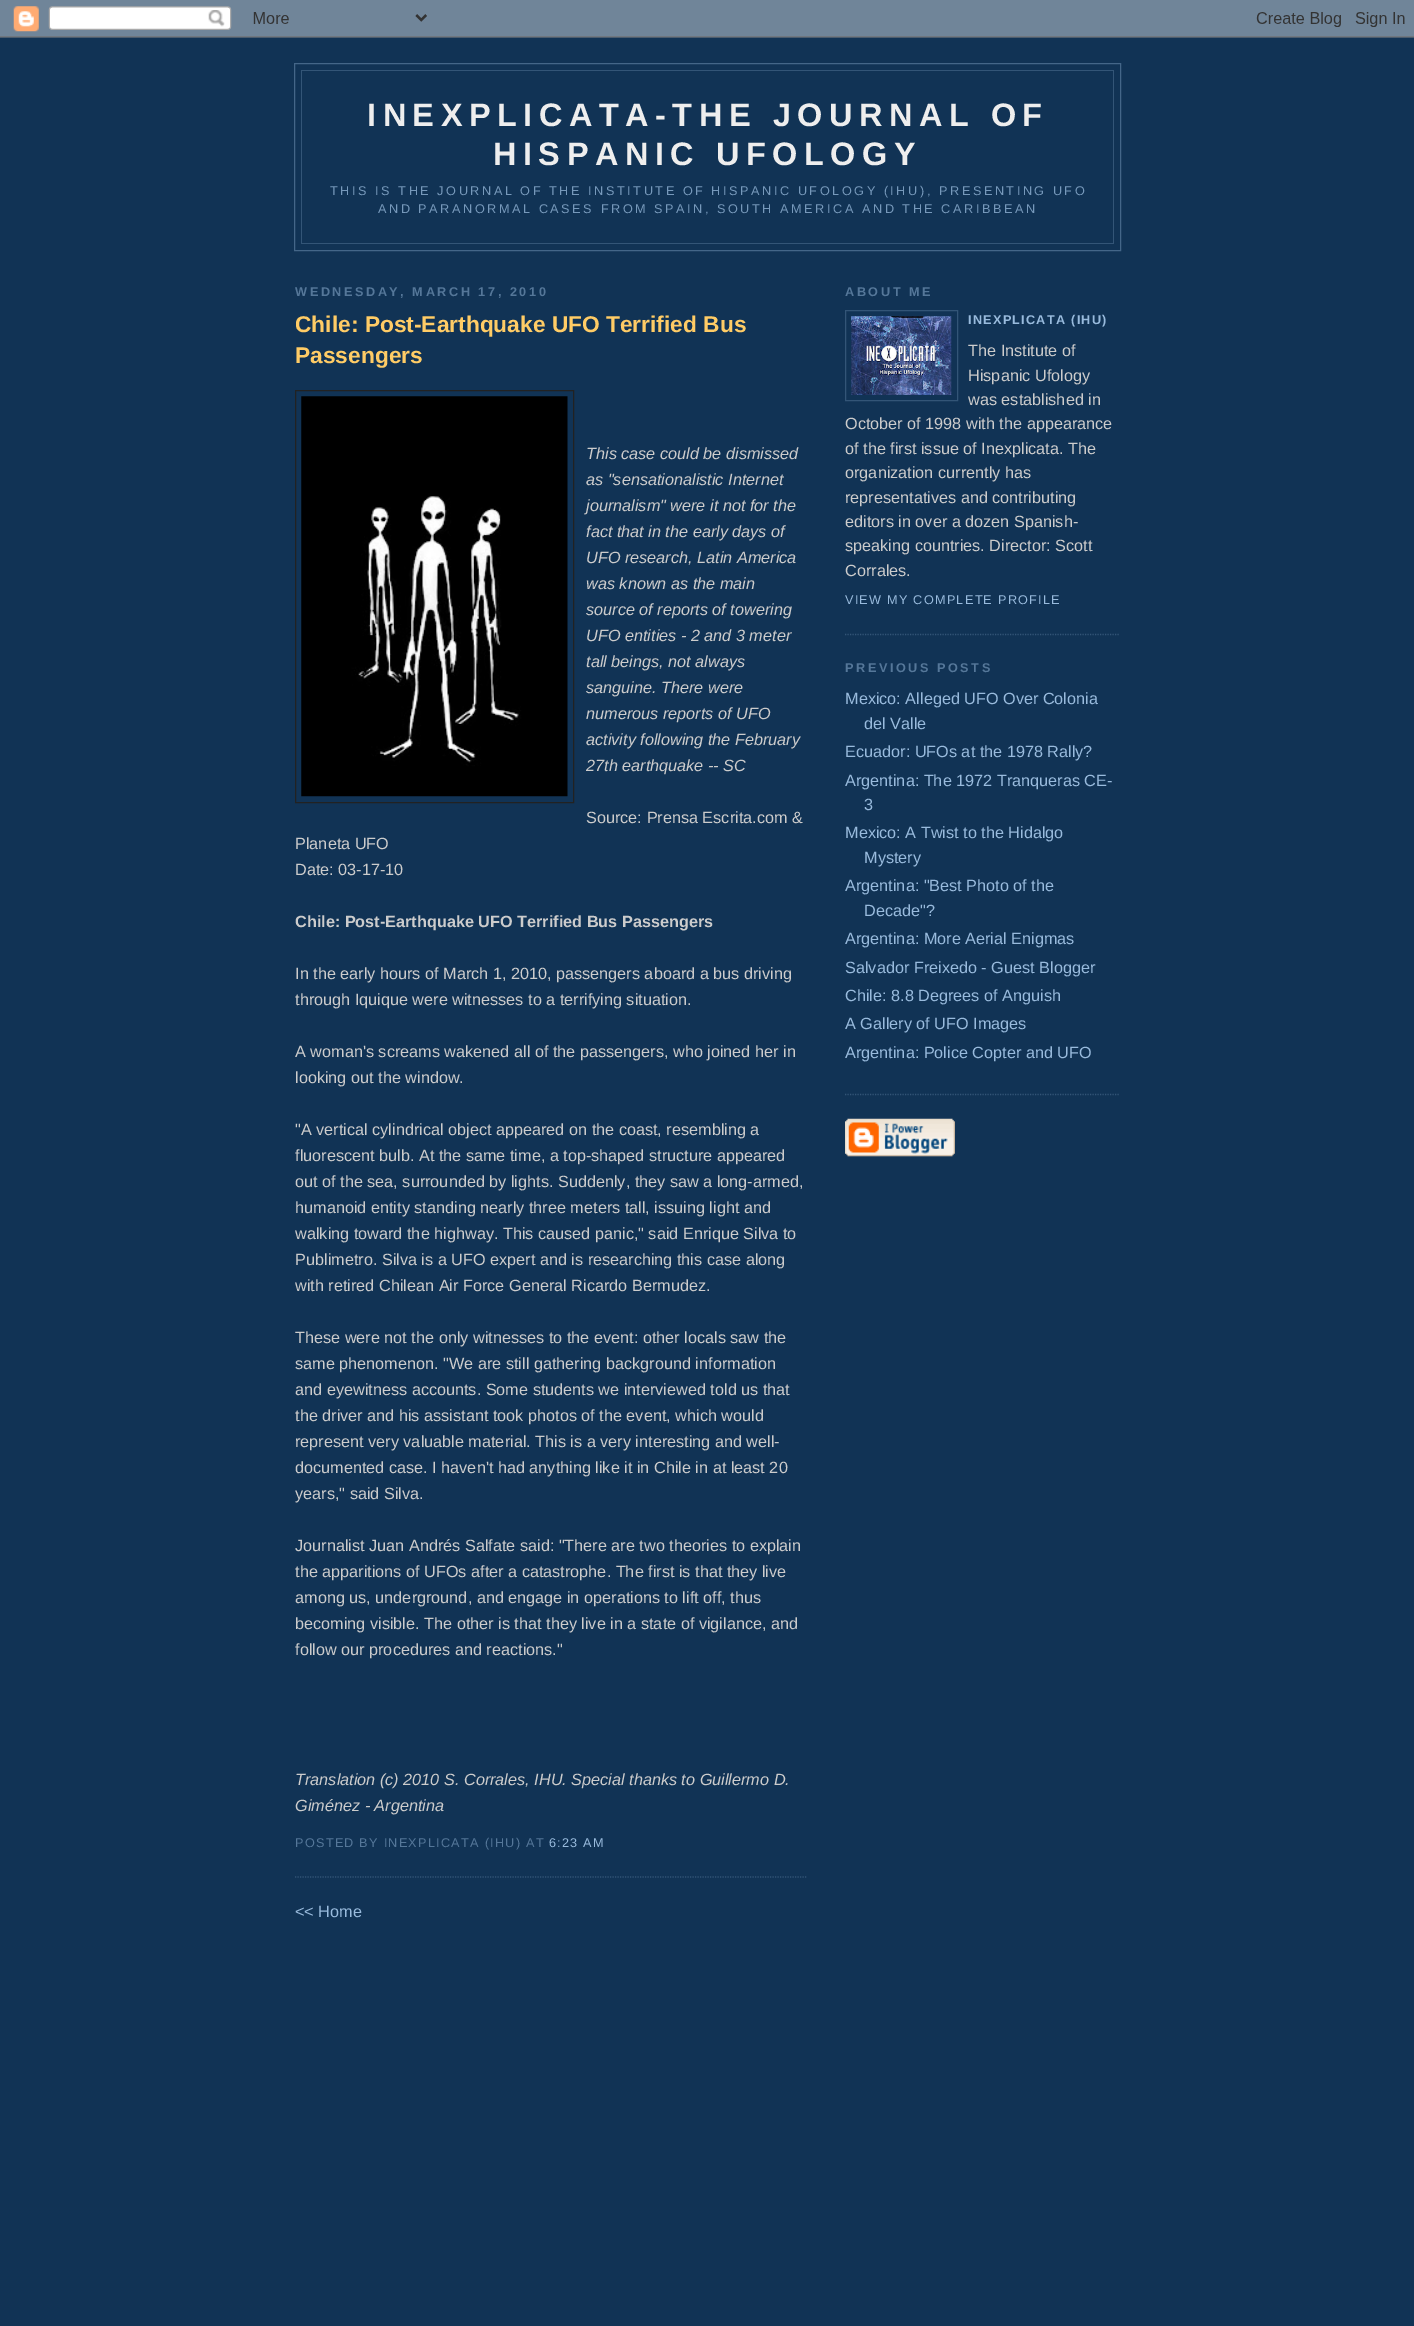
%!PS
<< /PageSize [1414 2326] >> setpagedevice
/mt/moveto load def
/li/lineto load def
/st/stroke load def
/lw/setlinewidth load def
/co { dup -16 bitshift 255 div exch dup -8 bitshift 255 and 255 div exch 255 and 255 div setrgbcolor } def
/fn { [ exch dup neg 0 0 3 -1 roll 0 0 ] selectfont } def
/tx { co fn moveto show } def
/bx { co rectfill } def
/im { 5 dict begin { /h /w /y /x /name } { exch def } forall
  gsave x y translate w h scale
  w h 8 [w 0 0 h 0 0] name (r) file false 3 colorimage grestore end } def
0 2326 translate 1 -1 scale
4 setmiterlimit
0 0 1414 2326 16#113355 bx
(media/1.raw) 0 0 1414 38 im
16#446688 co
294.5 63.5 826 187 rectstroke
301 70 813 1 16#335577 bx
1113 70 1 174 16#335577 bx
301 70 1 113 16#335577 bx
301 243 813 1 16#335577 bx
301 183 1 61 16#335577 bx
1.2 lw
[1.25 1.25] 0 setdash
295 1877 mt 807.5 1877 li st
16#222222 co
1 lw
[] 0 setdash
295.5 390.5 278 412 rectstroke
(media/2.raw) 301 396 267 401 im
16#335577 co
1.2 lw
[1.25 1.25] 0 setdash
845 634.5 mt 1120 634.5 li st
1 lw
[] 0 setdash
845.5 310.5 112 90 rectstroke
(media/3.raw) 851 316 101 79 im
1.2 lw
[1.25 1.25] 0 setdash
845 1094.5 mt 1120 1094.5 li st
(media/4.raw) 845 1118 110 39 im
/LiberationSans-Bold 32.5 fn
16#EEEEEE co
367 126 mt 6.5 0 (INEXPLICATA-THE JOURNAL OF) ashow
493 165 mt 6.5 0 (HISPANIC UFOLOGY) ashow
/LiberationSans-Regular 12.68 fn
16#7799BB co
330 195 mt 2.55 0 (THIS IS THE JOURNAL OF THE INSTITUTE OF HISPANIC UFOLOGY \(IHU\), PRESENTING UFO) ashow
378 213 mt 2.55 0 (AND PARANORMAL CASES FROM SPAIN, SOUTH AMERICA AND THE CARIBBEAN) ashow
/LiberationSans-Bold 12.68 fn
16#557799 co
295 296 mt 2.55 0 (WEDNESDAY, MARCH 17, 2010) ashow
(Chile: Post-Earthquake UFO Terrified Bus) 295 332 /LiberationSans-Bold 22.75 16#FFCC66 tx
(Passengers) 295 363 /LiberationSans-Bold 22.75 16#FFCC66 tx
(This case could be dismissed) 586 459 /LiberationSans-Italic 16.25 16#CCCCCC tx
(as "sensationalistic Internet) 586 485 /LiberationSans-Italic 16.25 16#CCCCCC tx
(journalism" were it not for the) 586 511 /LiberationSans-Italic 16.25 16#CCCCCC tx
(fact that in the early days of) 586 537 /LiberationSans-Italic 16.25 16#CCCCCC tx
(UFO research, Latin America) 586 563 /LiberationSans-Italic 16.25 16#CCCCCC tx
(was known as the main) 586 589 /LiberationSans-Italic 16.25 16#CCCCCC tx
(source of reports of towering) 586 615 /LiberationSans-Italic 16.25 16#CCCCCC tx
(UFO entities - 2 and 3 meter) 586 641 /LiberationSans-Italic 16.25 16#CCCCCC tx
(tall beings, not always) 586 667 /LiberationSans-Italic 16.25 16#CCCCCC tx
(sanguine. There were) 586 693 /LiberationSans-Italic 16.25 16#CCCCCC tx
(numerous reports of UFO) 586 719 /LiberationSans-Italic 16.25 16#CCCCCC tx
(activity following the February) 586 745 /LiberationSans-Italic 16.25 16#CCCCCC tx
(27th earthquake -- SC) 586 771 /LiberationSans-Italic 16.25 16#CCCCCC tx
(Source: Prensa Escrita.com &) 586 823 /LiberationSans-Regular 16.25 16#CCCCCC tx
(Planeta UFO) 295 849 /LiberationSans-Regular 16.25 16#CCCCCC tx
(Date: 03-17-10) 295 875 /LiberationSans-Regular 16.25 16#CCCCCC tx
(Chile: Post-Earthquake UFO Terrified Bus Passengers) 295 927 /LiberationSans-Bold 16.25 16#CCCCCC tx
(In the early hours of March 1, 2010, passengers aboard a bus driving) 295 979 /LiberationSans-Regular 16.25 16#CCCCCC tx
(through Iquique were witnesses to a terrifying situation.) 295 1005 /LiberationSans-Regular 16.25 16#CCCCCC tx
(A woman's screams wakened all of the passengers, who joined her in) 295 1057 /LiberationSans-Regular 16.25 16#CCCCCC tx
(looking out the window.) 295 1083 /LiberationSans-Regular 16.25 16#CCCCCC tx
("A vertical cylindrical object appeared on the coast, resembling a) 295 1135 /LiberationSans-Regular 16.25 16#CCCCCC tx
(fluorescent bulb. At the same time, a top-shaped structure appeared) 295 1161 /LiberationSans-Regular 16.25 16#CCCCCC tx
(out of the sea, surrounded by lights. Suddenly, they saw a long-armed,) 295 1187 /LiberationSans-Regular 16.25 16#CCCCCC tx
(humanoid entity standing nearly three meters tall, issuing light and) 295 1213 /LiberationSans-Regular 16.25 16#CCCCCC tx
(walking toward the highway. This caused panic," said Enrique Silva to) 295 1239 /LiberationSans-Regular 16.25 16#CCCCCC tx
(Publimetro. Silva is a UFO expert and is researching this case along) 295 1265 /LiberationSans-Regular 16.25 16#CCCCCC tx
(with retired Chilean Air Force General Ricardo Bermudez.) 295 1291 /LiberationSans-Regular 16.25 16#CCCCCC tx
(These were not the only witnesses to the event: other locals saw the) 295 1343 /LiberationSans-Regular 16.25 16#CCCCCC tx
(same phenomenon. "We are still gathering background information) 295 1369 /LiberationSans-Regular 16.25 16#CCCCCC tx
(and eyewitness accounts. Some students we interviewed told us that) 295 1395 /LiberationSans-Regular 16.25 16#CCCCCC tx
(the driver and his assistant took photos of the event, which would) 295 1421 /LiberationSans-Regular 16.25 16#CCCCCC tx
(represent very valuable material. This is a very interesting and well-) 295 1447 /LiberationSans-Regular 16.25 16#CCCCCC tx
(documented case. I haven't had anything like it in Chile in at least 20) 295 1473 /LiberationSans-Regular 16.25 16#CCCCCC tx
(years," said Silva.) 295 1499 /LiberationSans-Regular 16.25 16#CCCCCC tx
(Journalist Juan Andrés Salfate said: "There are two theories to explain) 295 1551 /LiberationSans-Regular 16.25 16#CCCCCC tx
(the apparitions of UFOs after a catastrophe. The first is that they live) 295 1577 /LiberationSans-Regular 16.25 16#CCCCCC tx
(among us, underground, and engage in operations to lift off, thus) 295 1603 /LiberationSans-Regular 16.25 16#CCCCCC tx
(becoming visible. The other is that they live in a state of vigilance, and) 295 1629 /LiberationSans-Regular 16.25 16#CCCCCC tx
(follow our procedures and reactions.") 295 1655 /LiberationSans-Regular 16.25 16#CCCCCC tx
(Translation \(c\) 2010 S. Corrales, IHU. Special thanks to Guillermo D.) 295 1785 /LiberationSans-Italic 16.25 16#CCCCCC tx
(Giménez - Argentina) 295 1811 /LiberationSans-Italic 16.25 16#CCCCCC tx
/LiberationSans-Regular 12.68 fn
16#557799 co
295 1847 mt 1.25 0 (POSTED BY INEXPLICATA \(IHU\) AT) ashow
16#99BBDD co
549 1847 mt 1.25 0 (6:23 AM) ashow
(<< Home) 295 1917 /LiberationSans-Regular 16.25 16#99BBDD tx
/LiberationSans-Bold 12.68 fn
16#557799 co
845 296 mt 2.55 0 (ABOUT ME) ashow
16#99BBDD co
968 324 mt 1.25 0 (INEXPLICATA \(IHU\)) ashow
(The Institute of) 968 356 /LiberationSans-Regular 16.25 16#CCCCCC tx
(Hispanic Ufology) 968 381 /LiberationSans-Regular 16.25 16#CCCCCC tx
(was established in) 968 405 /LiberationSans-Regular 16.25 16#CCCCCC tx
(October of 1998 with the appearance) 845 429 /LiberationSans-Regular 16.25 16#CCCCCC tx
(of the first issue of Inexplicata. The) 845 454 /LiberationSans-Regular 16.25 16#CCCCCC tx
(organization currently has) 845 478 /LiberationSans-Regular 16.25 16#CCCCCC tx
(representatives and contributing) 845 503 /LiberationSans-Regular 16.25 16#CCCCCC tx
(editors in over a dozen Spanish-) 845 527 /LiberationSans-Regular 16.25 16#CCCCCC tx
(speaking countries. Director: Scott) 845 551 /LiberationSans-Regular 16.25 16#CCCCCC tx
(Corrales.) 845 576 /LiberationSans-Regular 16.25 16#CCCCCC tx
/LiberationSans-Regular 12.68 fn
16#99BBDD co
845 604 mt 1.25 0 (VIEW MY COMPLETE PROFILE) ashow
/LiberationSans-Bold 12.68 fn
16#557799 co
845 672 mt 2.55 0 (PREVIOUS POSTS) ashow
(Mexico: Alleged UFO Over Colonia) 845 704 /LiberationSans-Regular 16.25 16#99BBDD tx
(del Valle) 864 729 /LiberationSans-Regular 16.25 16#99BBDD tx
(Ecuador: UFOs at the 1978 Rally?) 845 757 /LiberationSans-Regular 16.25 16#99BBDD tx
(Argentina: The 1972 Tranqueras CE-) 845 786 /LiberationSans-Regular 16.25 16#99BBDD tx
(3) 864 810 /LiberationSans-Regular 16.25 16#99BBDD tx
(Mexico: A Twist to the Hidalgo) 845 838 /LiberationSans-Regular 16.25 16#99BBDD tx
(Mystery) 864 863 /LiberationSans-Regular 16.25 16#99BBDD tx
(Argentina: "Best Photo of the) 845 891 /LiberationSans-Regular 16.25 16#99BBDD tx
(Decade"?) 864 916 /LiberationSans-Regular 16.25 16#99BBDD tx
(Argentina: More Aerial Enigmas) 845 944 /LiberationSans-Regular 16.25 16#99BBDD tx
(Salvador Freixedo - Guest Blogger) 845 973 /LiberationSans-Regular 16.25 16#99BBDD tx
(Chile: 8.8 Degrees of Anguish) 845 1001 /LiberationSans-Regular 16.25 16#99BBDD tx
(A Gallery of UFO Images) 845 1029 /LiberationSans-Regular 16.25 16#99BBDD tx
(Argentina: Police Copter and UFO) 845 1058 /LiberationSans-Regular 16.25 16#99BBDD tx
showpage
